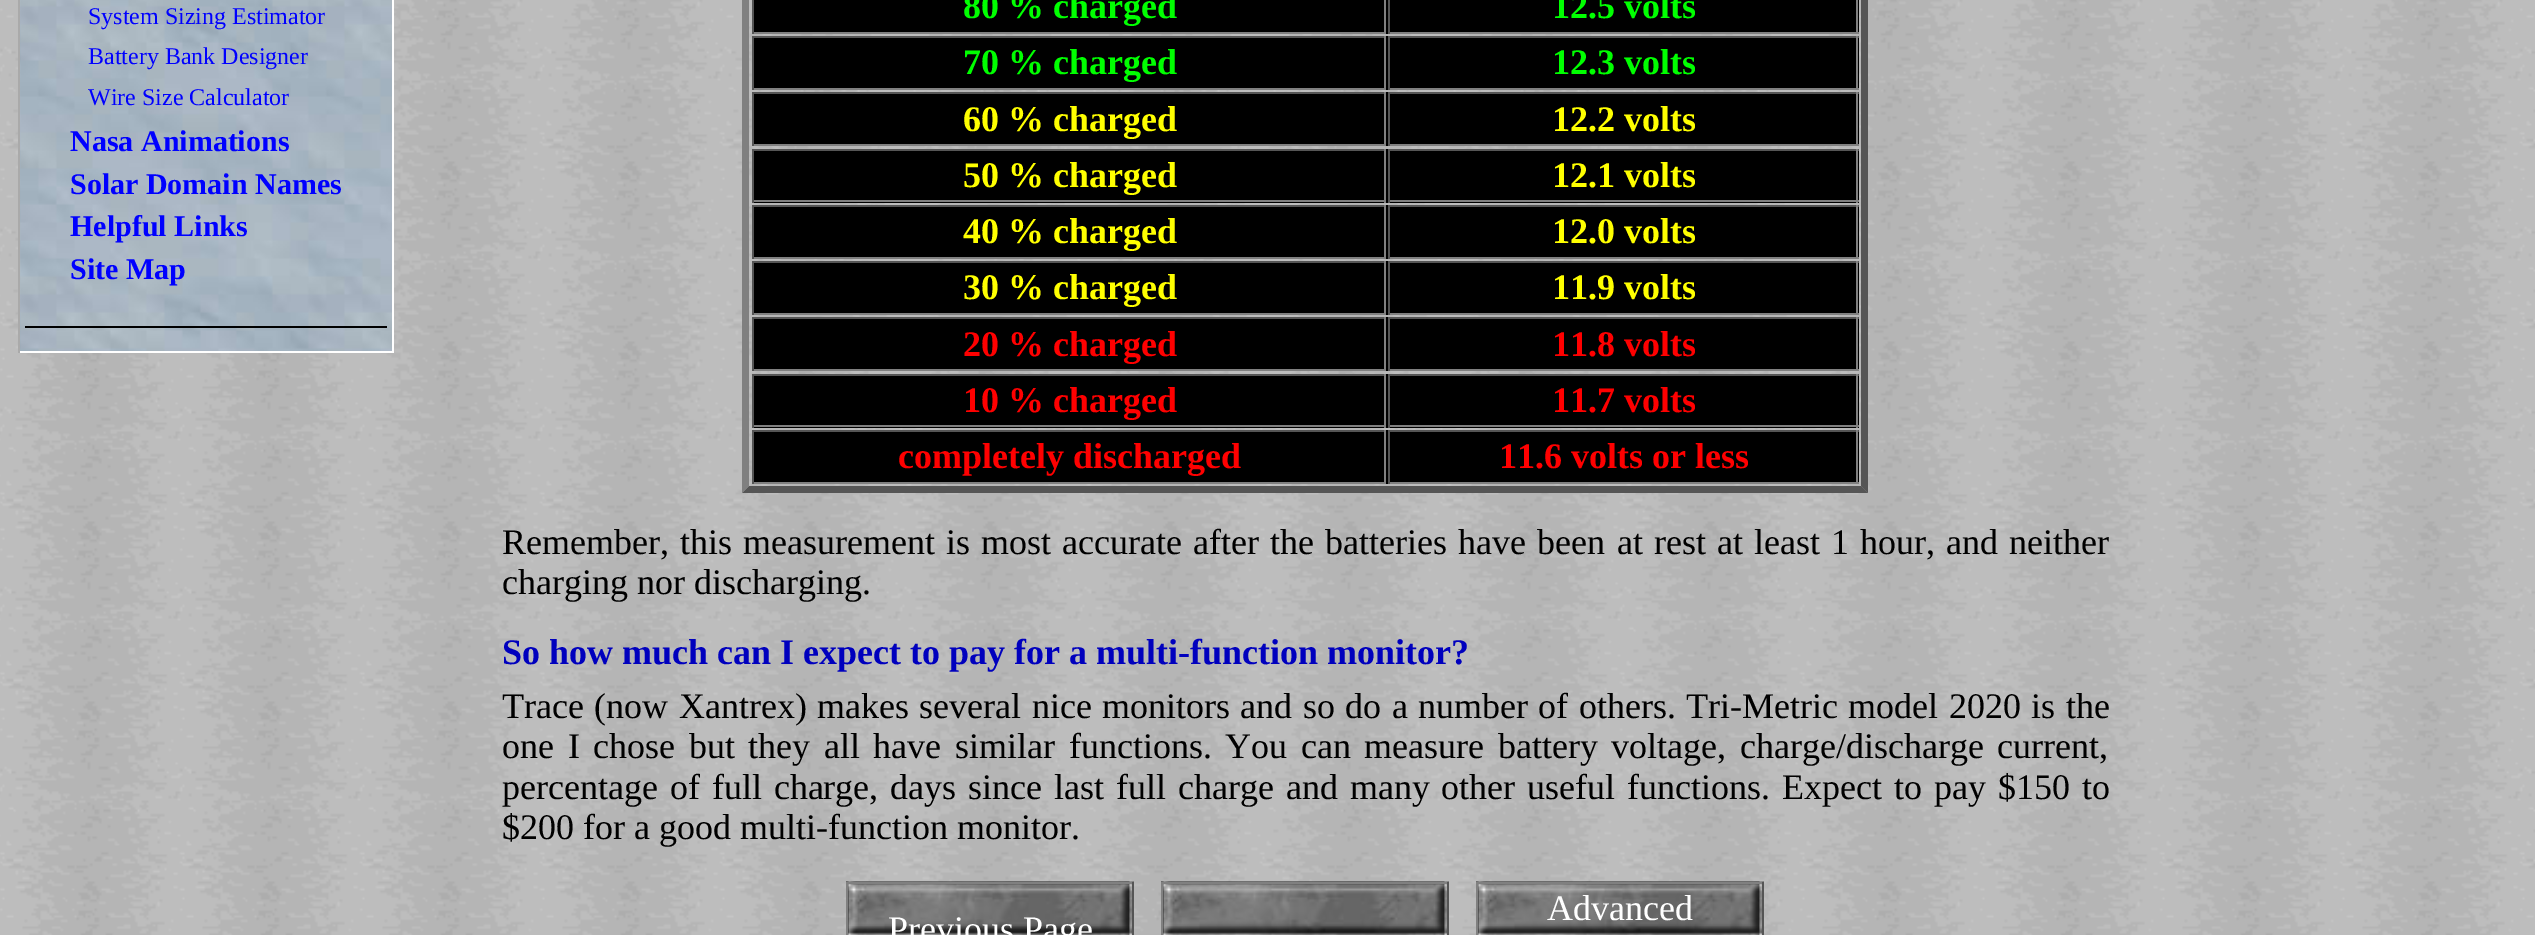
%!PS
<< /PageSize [2535 935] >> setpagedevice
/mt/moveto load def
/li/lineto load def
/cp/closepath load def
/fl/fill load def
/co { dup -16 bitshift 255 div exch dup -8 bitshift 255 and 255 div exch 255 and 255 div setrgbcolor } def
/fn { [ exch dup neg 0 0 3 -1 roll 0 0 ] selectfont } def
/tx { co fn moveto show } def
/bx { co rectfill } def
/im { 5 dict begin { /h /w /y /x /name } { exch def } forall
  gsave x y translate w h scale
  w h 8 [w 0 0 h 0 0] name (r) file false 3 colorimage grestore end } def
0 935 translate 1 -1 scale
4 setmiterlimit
0 0 2535 935 16#FFFFFF bx
(media/1.raw) 0 0 2535 935 im
(media/2.raw) 20 0 372 351 im
392 0 2 353 16#FFFFFF bx
18 351 376 2 16#FFFFFF bx
18 0 2 353 16#AAAAAA bx
25 326 362 2 16#000000 bx
16#555555 co
1868 -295 mt 1868 493 li 1861 486 li 1861 -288 li cp fl
1868 493 mt 742 493 li 749 486 li 1861 486 li cp fl
16#808080 co
742 493 mt 742 -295 li 749 -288 li 749 486 li cp fl
754 0 1105 34 16#000000 bx
1384 0 2 34 16#808080 bx
752 32 634 2 16#808080 bx
752 0 2 34 16#555555 bx
1856 0 2 34 16#808080 bx
1388 32 471 2 16#808080 bx
1388 0 2 34 16#555555 bx
754 36 1105 54 16#000000 bx
752 36 634 2 16#555555 bx
1384 36 2 54 16#808080 bx
752 88 634 2 16#808080 bx
752 36 2 54 16#555555 bx
1388 36 471 2 16#555555 bx
1856 36 2 54 16#808080 bx
1388 88 471 2 16#808080 bx
1388 36 2 54 16#555555 bx
754 92 1105 54 16#000000 bx
752 92 634 2 16#555555 bx
1384 92 2 54 16#808080 bx
752 144 634 2 16#808080 bx
752 92 2 54 16#555555 bx
1388 92 471 2 16#555555 bx
1856 92 2 54 16#808080 bx
1388 144 471 2 16#808080 bx
1388 92 2 54 16#555555 bx
754 149 1105 54 16#000000 bx
752 149 634 2 16#555555 bx
1384 149 2 54 16#808080 bx
752 200 634 2 16#808080 bx
752 149 2 54 16#555555 bx
1388 149 471 2 16#555555 bx
1856 149 2 54 16#808080 bx
1388 200 471 2 16#808080 bx
1388 149 2 54 16#555555 bx
754 205 1105 54 16#000000 bx
752 205 634 2 16#555555 bx
1384 205 2 54 16#808080 bx
752 257 634 2 16#808080 bx
752 205 2 54 16#555555 bx
1388 205 471 2 16#555555 bx
1856 205 2 54 16#808080 bx
1388 257 471 2 16#808080 bx
1388 205 2 54 16#555555 bx
754 261 1105 54 16#000000 bx
752 261 634 2 16#555555 bx
1384 261 2 54 16#808080 bx
752 313 634 2 16#808080 bx
752 261 2 54 16#555555 bx
1388 261 471 2 16#555555 bx
1856 261 2 54 16#808080 bx
1388 313 471 2 16#808080 bx
1388 261 2 54 16#555555 bx
754 317 1105 54 16#000000 bx
752 317 634 2 16#555555 bx
1384 317 2 54 16#808080 bx
752 369 634 2 16#808080 bx
752 317 2 54 16#555555 bx
1388 317 471 2 16#555555 bx
1856 317 2 54 16#808080 bx
1388 369 471 2 16#808080 bx
1388 317 2 54 16#555555 bx
754 374 1105 54 16#000000 bx
752 374 634 2 16#555555 bx
1384 374 2 54 16#808080 bx
752 425 634 2 16#808080 bx
752 374 2 54 16#555555 bx
1388 374 471 2 16#555555 bx
1856 374 2 54 16#808080 bx
1388 425 471 2 16#808080 bx
1388 374 2 54 16#555555 bx
754 430 1105 54 16#000000 bx
752 430 634 2 16#555555 bx
1384 430 2 54 16#808080 bx
752 482 634 2 16#808080 bx
752 430 2 54 16#555555 bx
1388 430 471 2 16#555555 bx
1856 430 2 54 16#808080 bx
1388 482 471 2 16#808080 bx
1388 430 2 54 16#555555 bx
(media/3.raw) 1161 881 288 54 im
1161 882 288 2 16#808080 bx
1447 882 2 53 16#555555 bx
1161 882 2 53 16#808080 bx
(media/4.raw) 1476 881 288 54 im
1476 882 288 2 16#808080 bx
1762 882 2 53 16#555555 bx
1476 882 2 53 16#808080 bx
(media/5.raw) 846 881 288 54 im
846 882 288 2 16#808080 bx
1132 882 2 53 16#555555 bx
846 882 2 53 16#808080 bx
(System Sizing Estimator) 88 24 /LiberationSerif-Regular 24 16#0000FF tx
(Battery Bank Designer) 88 64 /LiberationSerif-Regular 24 16#0000FF tx
(Wire Size Calculator) 88 105 /LiberationSerif-Regular 24 16#0000FF tx
(Nasa Animations) 70 151 /LiberationSerif-Bold 30 16#0000FF tx
(Solar Domain Names) 70 194 /LiberationSerif-Bold 30 16#0000FF tx
(Helpful Links) 70 236 /LiberationSerif-Bold 30 16#0000FF tx
(Site Map) 70 279 /LiberationSerif-Bold 30 16#0000FF tx
(80 % charged) 963 18 /LiberationSerif-Bold 36 16#00FF00 tx
(12.5 volts) 1552 18 /LiberationSerif-Bold 36 16#00FF00 tx
(70 % charged) 963 74 /LiberationSerif-Bold 36 16#00FF00 tx
(12.3 volts) 1552 74 /LiberationSerif-Bold 36 16#00FF00 tx
(60 % charged) 963 131 /LiberationSerif-Bold 36 16#FFFF00 tx
(12.2 volts) 1552 131 /LiberationSerif-Bold 36 16#FFFF00 tx
(50 % charged) 963 187 /LiberationSerif-Bold 36 16#FFFF00 tx
(12.1 volts) 1552 187 /LiberationSerif-Bold 36 16#FFFF00 tx
(40 % charged) 963 243 /LiberationSerif-Bold 36 16#FFFF00 tx
(12.0 volts) 1552 243 /LiberationSerif-Bold 36 16#FFFF00 tx
(30 % charged) 963 299 /LiberationSerif-Bold 36 16#FFFF00 tx
(11.9 volts) 1552 299 /LiberationSerif-Bold 36 16#FFFF00 tx
(20 % charged) 963 356 /LiberationSerif-Bold 36 16#FF0000 tx
(11.8 volts) 1552 356 /LiberationSerif-Bold 36 16#FF0000 tx
(10 % charged) 963 412 /LiberationSerif-Bold 36 16#FF0000 tx
(11.7 volts) 1552 412 /LiberationSerif-Bold 36 16#FF0000 tx
(completely discharged) 898 468 /LiberationSerif-Bold 36 16#FF0000 tx
(11.6 volts or less) 1499 468 /LiberationSerif-Bold 36 16#FF0000 tx
/LiberationSerif-Regular 36 fn
16#000000 co
502 554 mt 2.1 0 32 (Remember, this measurement is most accurate after the batteries have been at rest at least 1 hour, and neither) widthshow
(charging nor discharging.) 502 594 /LiberationSerif-Regular 36 16#000000 tx
(So how much can I expect to pay for a multi-function monitor?) 502 664 /LiberationSerif-Bold 36 16#0000BE tx
/LiberationSerif-Regular 36 fn
16#000000 co
502 718 mt 1.4 0 32 (Trace \(now Xantrex\) makes several nice monitors and so do a number of others. Tri-Metric model 2020 is the) widthshow
502 758 mt 4.6 0 32 (one I chose but they all have similar functions. You can measure battery voltage, charge/discharge current,) widthshow
502 799 mt 2.9 0 32 (percentage of full charge, days since last full charge and many other useful functions. Expect to pay $150 to) widthshow
($200 for a good multi-function monitor.) 502 839 /LiberationSerif-Regular 36 16#000000 tx
(Advanced) 1547 920 /LiberationSerif-Regular 36 16#FFFFFF tx
(Previous Page) 888 941 /LiberationSerif-Regular 36 16#FFFFFF tx
showpage
